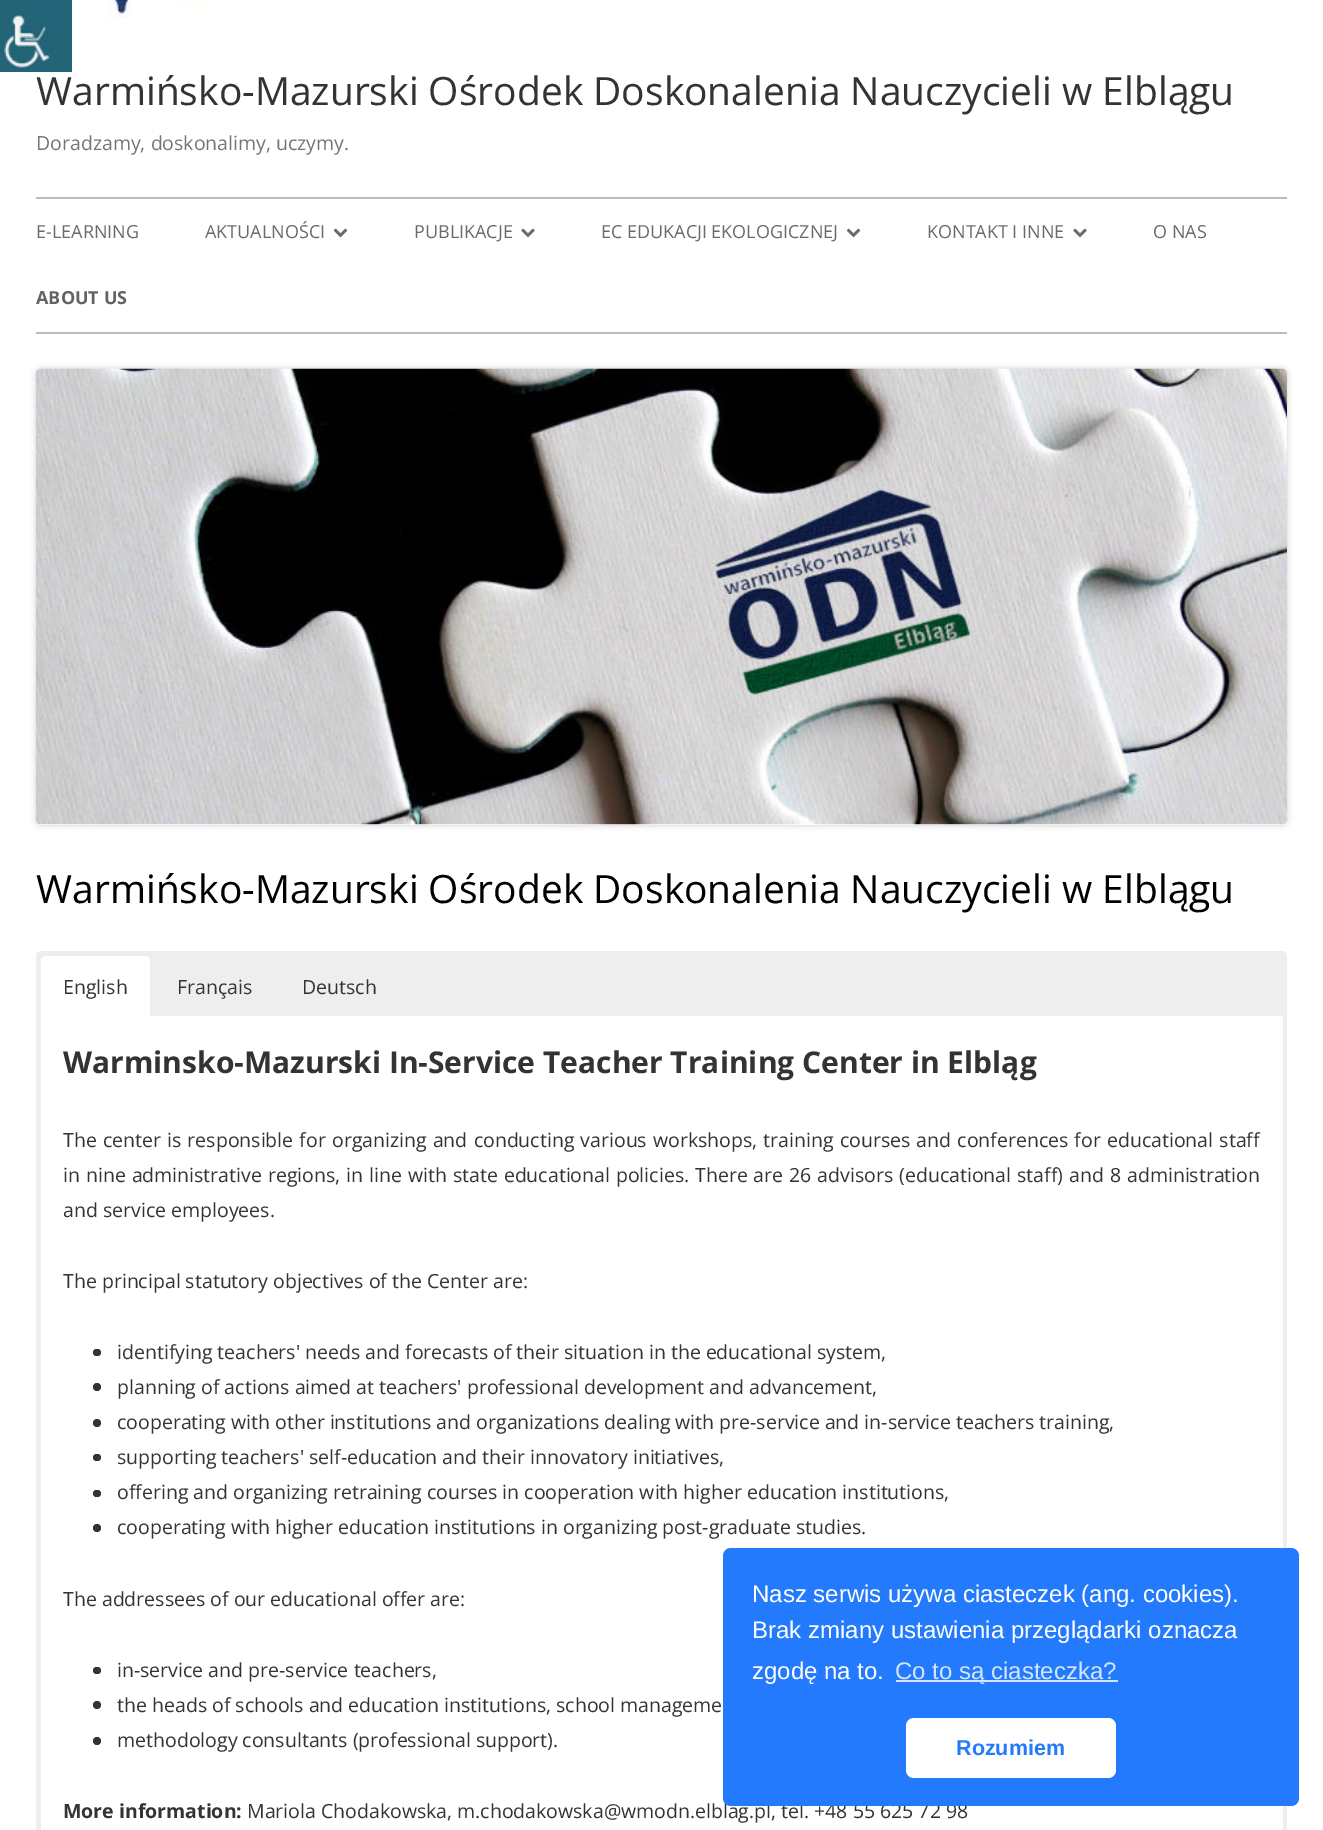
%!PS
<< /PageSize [1323 1830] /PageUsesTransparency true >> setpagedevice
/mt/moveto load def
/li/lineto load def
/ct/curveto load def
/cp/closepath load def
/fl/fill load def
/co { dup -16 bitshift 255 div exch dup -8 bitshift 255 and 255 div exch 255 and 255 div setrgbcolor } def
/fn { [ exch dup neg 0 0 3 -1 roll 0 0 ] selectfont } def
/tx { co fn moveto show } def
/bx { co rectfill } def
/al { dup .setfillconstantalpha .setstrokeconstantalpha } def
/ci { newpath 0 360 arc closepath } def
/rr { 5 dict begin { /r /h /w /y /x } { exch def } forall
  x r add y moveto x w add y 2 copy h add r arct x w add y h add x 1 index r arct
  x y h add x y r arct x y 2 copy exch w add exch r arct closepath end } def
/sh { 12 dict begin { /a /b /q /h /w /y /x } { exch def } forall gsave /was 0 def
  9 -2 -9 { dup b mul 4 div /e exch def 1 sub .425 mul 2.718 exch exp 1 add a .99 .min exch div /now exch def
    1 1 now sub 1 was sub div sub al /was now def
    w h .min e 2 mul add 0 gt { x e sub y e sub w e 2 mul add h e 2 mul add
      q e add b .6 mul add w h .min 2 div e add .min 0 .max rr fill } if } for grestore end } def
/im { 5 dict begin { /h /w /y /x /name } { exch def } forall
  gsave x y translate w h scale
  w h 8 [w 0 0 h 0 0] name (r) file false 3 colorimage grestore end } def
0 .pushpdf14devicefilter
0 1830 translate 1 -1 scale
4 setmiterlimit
0 0 1323 1830 16#FFFFFF bx
(media/1.raw) 0 0 72 72 im
(media/2.raw) 107 0 98 18 im
36 197 1251 2 16#BBBBBB bx
36 332 1251 2 16#BBBBBB bx
(media/3.raw) 333 228 15 10 im
(media/4.raw) 521 228 14 10 im
(media/3.raw) 846 228 15 10 im
(media/4.raw) 1073 228 14 10 im
16#000000 co
36 369 1251 456 5 3 .2 sh
(media/5.raw) 36 368 1251 457 im
16#EEEEEE co
36 951 1251 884 5 rr fl
16#FFFFFF co
46 956 mt 145 956 li 148 956 150 958 150 961 ct 150 1016 li 41 1016 li 41 961 li 41 958 43 956 46 956 ct cp fl
41 1016 1242 814 16#FFFFFF bx
16#333333 co
93 1349 8 7 3.5 rr fl
97 1387 4 ci fl
97 1423 4 ci fl
93 1454 8 7 3.5 rr fl
93 1490 8 7 3.5 rr fl
97 1528 4 ci fl
93 1667 8 7 3.5 rr fl
97 1705 4 ci fl
97 1741 4 ci fl
(Warmińsko-Mazurski Ośrodek Doskonalenia Nauczycieli w Elblągu) 36 105 /OpenSans-Regular 39 16#333333 tx
(Doradzamy, doskonalimy, uczymy.) 36 150 /OpenSans-Regular 19.5 16#757575 tx
(E-LEARNING) 36 238 /OpenSans-Regular 18 16#6A6A6A tx
(AKTUALNOŚCI) 205 238 /OpenSans-Regular 18 16#6A6A6A tx
(PUBLIKACJE) 414 238 /OpenSans-Regular 18 16#6A6A6A tx
(EC EDUKACJI EKOLOGICZNEJ) 601 238 /OpenSans-Regular 18 16#6A6A6A tx
(KONTAKT I INNE) 927 238 /OpenSans-Regular 18 16#6A6A6A tx
(O NAS) 1153 238 /OpenSans-Regular 18 16#6A6A6A tx
(ABOUT US) 36 304 /OpenSans-Bold 18 16#636363 tx
(Warmińsko-Mazurski Ośrodek Doskonalenia Nauczycieli w Elblągu) 36 903 /OpenSans-Regular 39 16#000000 tx
(English) 63 994 /OpenSans-Regular 19.5 16#333333 tx
(Français) 177 994 /OpenSans-Regular 19.5 16#333333 tx
(Deutsch) 302 994 /OpenSans-Regular 19.5 16#333333 tx
(Warminsko-Mazurski In-Service Teacher Training Center in Elbląg) 63 1073 /OpenSans-Bold 30 16#333333 tx
/OpenSans-Regular 19.5 fn
63 1147 mt 1.1 0 32 (The center is responsible for organizing and conducting various workshops, training courses and conferences for educational staff) widthshow
63 1182 mt .9 0 32 (in nine administrative regions, in line with state educational policies. There are 26 advisors \(educational staff\) and 8 administration) widthshow
(and service employees.) 63 1217 /OpenSans-Regular 19.5 16#333333 tx
(The principal statutory objectives of the Center are:) 63 1288 /OpenSans-Regular 19.5 16#333333 tx
(identifying teachers' needs and forecasts of their situation in the educational system,) 117 1359 /OpenSans-Regular 19.5 16#333333 tx
(planning of actions aimed at teachers' professional development and advancement,) 117 1394 /OpenSans-Regular 19.5 16#333333 tx
(cooperating with other institutions and organizations dealing with pre-service and in-service teachers training,) 117 1429 /OpenSans-Regular 19.5 16#333333 tx
(supporting teachers' self-education and their innovatory initiatives,) 117 1464 /OpenSans-Regular 19.5 16#333333 tx
(offering and organizing retraining courses in cooperation with higher education institutions,) 117 1499 /OpenSans-Regular 19.5 16#333333 tx
(cooperating with higher education institutions in organizing post-graduate studies.) 117 1534 /OpenSans-Regular 19.5 16#333333 tx
(The addressees of our educational offer are:) 63 1606 /OpenSans-Regular 19.5 16#333333 tx
(in-service and pre-service teachers,) 117 1677 /OpenSans-Regular 19.5 16#333333 tx
(the heads of schools and education institutions, school manageme) 117 1712 /OpenSans-Regular 19.5 16#333333 tx
(methodology consultants \(professional support\).) 117 1747 /OpenSans-Regular 19.5 16#333333 tx
(More information:) 63 1818 /OpenSans-Bold 19.5 16#333333 tx
(Mariola Chodakowska, m.chodakowska@wmodn.elblag.pl, tel. +48 55 625 72 98) 247 1818 /OpenSans-Regular 19.5 16#333333 tx
16#237AFC co
723 1548 576 258 8 rr fl
(Nasz serwis używa ciasteczek \(ang. cookies\).) 752 1602 /LiberationSans-Regular 24 16#FFFFFF tx
(Brak zmiany ustawienia przeglądarki oznacza) 752 1638 /LiberationSans-Regular 24 16#FFFFFF tx
(zgodę na to.) 752 1679 /LiberationSans-Regular 24 16#FFFFFF tx
896 1680 222 2 16#D3E4FE bx
(Co to są ciasteczka?) 895 1679 /LiberationSans-Regular 24 16#D3E4FE tx
16#FFFFFF co
906 1718 210 60 8 rr fl
(Rozumiem) 956 1755 /LiberationSans-Bold 21.5 16#237AFC tx
.poppdf14devicefilter showpage
